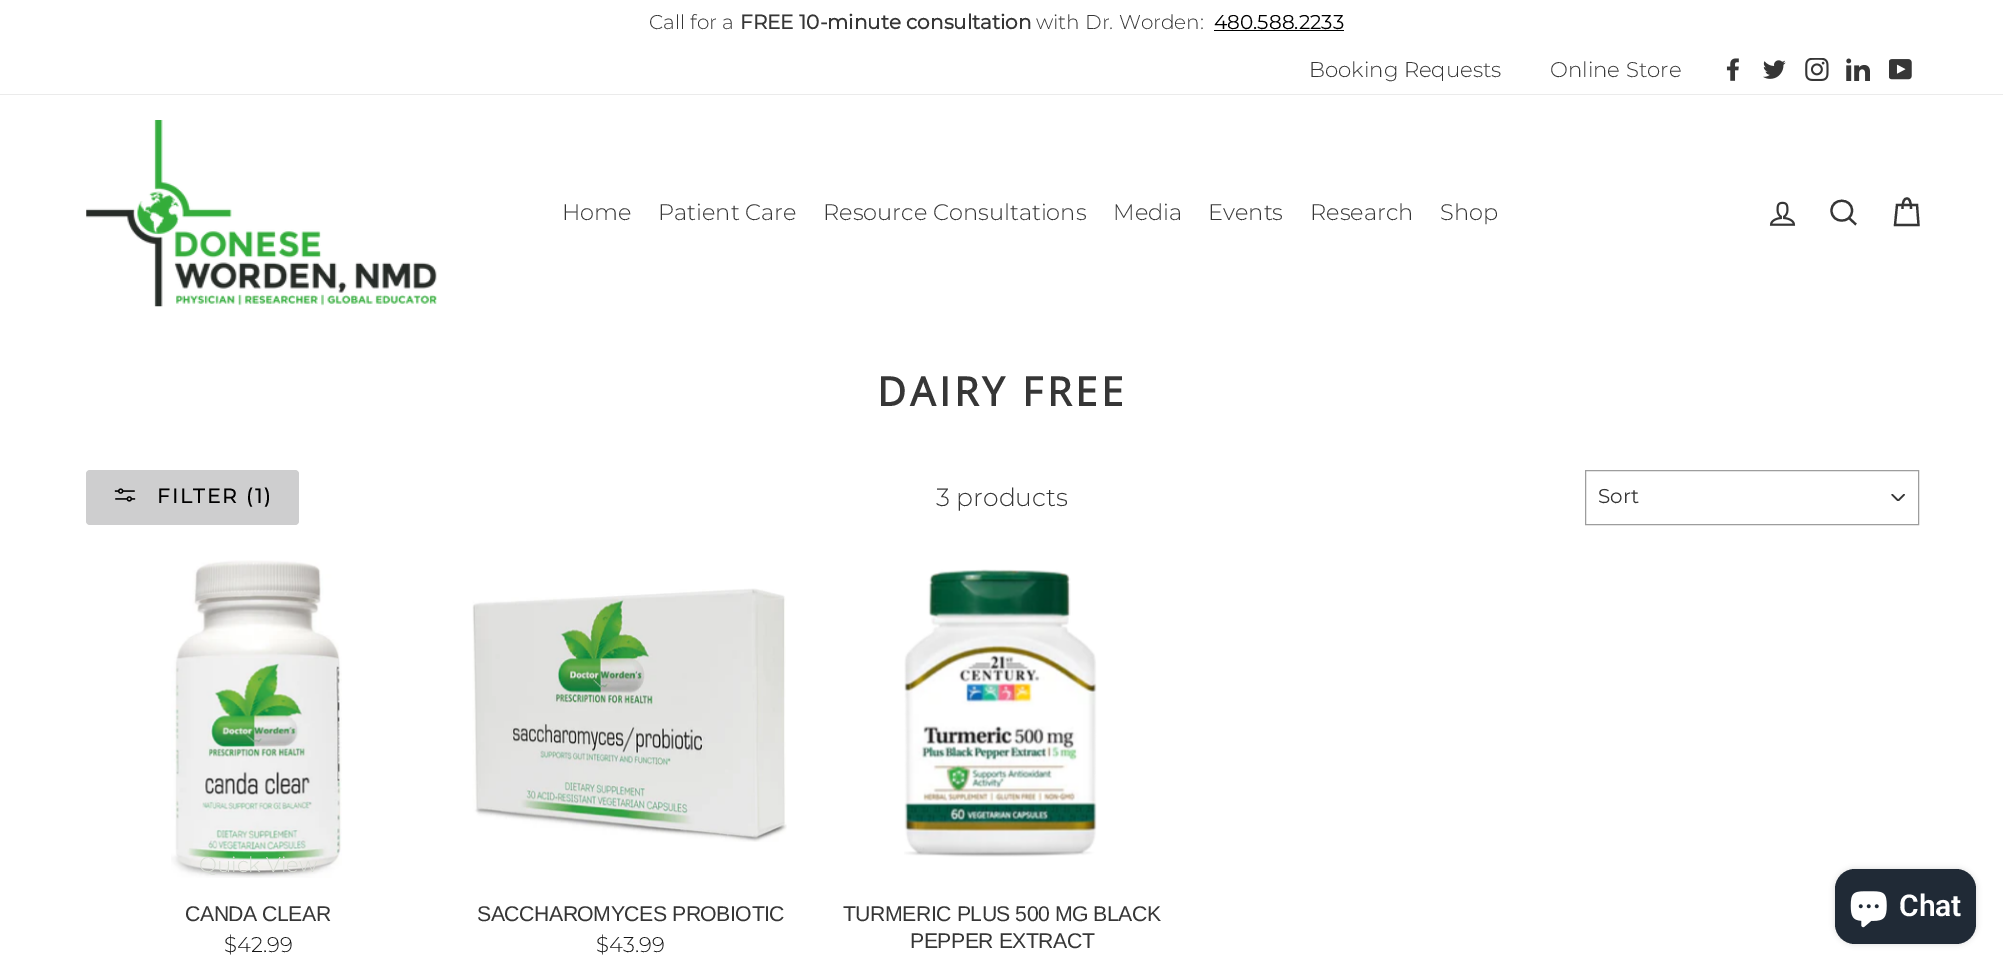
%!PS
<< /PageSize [2003 969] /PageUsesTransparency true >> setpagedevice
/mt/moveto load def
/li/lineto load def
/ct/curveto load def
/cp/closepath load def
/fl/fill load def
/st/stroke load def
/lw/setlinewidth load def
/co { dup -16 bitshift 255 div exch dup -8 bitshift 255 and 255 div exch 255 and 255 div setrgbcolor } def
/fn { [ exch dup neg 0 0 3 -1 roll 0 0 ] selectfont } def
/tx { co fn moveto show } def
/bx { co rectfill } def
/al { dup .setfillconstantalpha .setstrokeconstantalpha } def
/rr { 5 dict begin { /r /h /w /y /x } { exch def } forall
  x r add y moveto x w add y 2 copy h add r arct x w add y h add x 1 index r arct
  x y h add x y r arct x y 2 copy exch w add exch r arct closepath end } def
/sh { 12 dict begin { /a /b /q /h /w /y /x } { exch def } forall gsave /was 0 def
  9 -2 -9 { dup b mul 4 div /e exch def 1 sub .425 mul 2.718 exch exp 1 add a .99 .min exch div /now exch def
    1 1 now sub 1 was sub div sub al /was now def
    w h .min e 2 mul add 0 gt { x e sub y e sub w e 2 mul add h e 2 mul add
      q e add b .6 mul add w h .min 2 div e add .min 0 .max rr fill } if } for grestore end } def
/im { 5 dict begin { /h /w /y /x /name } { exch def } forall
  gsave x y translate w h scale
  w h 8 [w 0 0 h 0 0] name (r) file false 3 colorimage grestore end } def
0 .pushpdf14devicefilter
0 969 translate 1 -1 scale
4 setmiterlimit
0 0 2003 969 16#FFFFFF bx
1214 30 130 1 16#000000 bx
(media/1.raw) 1726 58 13 23 im
(media/2.raw) 1763 60 23 19 im
(media/3.raw) 1805 58 24 23 im
(media/4.raw) 1846 58 24 23 im
(media/5.raw) 1889 59 23 21 im
0 94 2003 1 16#EBEBEB bx
(media/6.raw) 86 120 351 187 im
(media/7.raw) 1769 201 27 25 im
16#363636 co
2.2 lw
1852 210.5 mt 1852 224 1831.5 224 1831.5 210.5 ct 1831.5 197.5 1852 197.5 1852 210.5 ct cp 1856 224.5 mt 1849 218 li st
1902.5 209 mt 1902.5 200.5 1904.5 198.5 1907 198.5 ct 1909 198.5 1911 200.5 1911 209 ct 1897 205 mt 1917 205 li 1918.5 225 li 1895 225 li cp st
16#CECECF co
86 470 213 55 4 rr fl
(media/8.raw) 114 488 22 14 im
(media/9.raw) 1891 494 14 7 im
16#9D9D9D co
1 lw
1585.5 470.5 333 54 rectstroke
(media/10.raw) 171 560 171 318 im
(media/11.raw) 472 588 315 254 im
(media/12.raw) 904 569 193 288 im
16#000000 co
1835 869 141 75 20 3 .15 sh
16#202A36 co
1835 869 141 75 20 rr fl
(media/13.raw) 1850 891 37 37 im
(Call for a) 649 29 /Montserrat-Light 20 16#363636 tx
(FREE 10-minute consultation) 740 29 /Montserrat-Bold 20 16#363636 tx
(with Dr. Worden:) 1036 29 /Montserrat-Light 20 16#363636 tx
(480.588.2233) 1214 29 /Montserrat-Regular 20 16#000000 tx
(Booking Requests) 1309 77 /Montserrat-Light 21.25 16#363636 tx
(Online Store) 1550 77 /Montserrat-Light 21.25 16#363636 tx
(Home) 562 220 /Montserrat-Light 22.5 16#363636 tx
(Patient Care) 658 220 /Montserrat-Light 22.5 16#363636 tx
(Resource Consultations) 823 220 /Montserrat-Light 22.5 16#363636 tx
(Media) 1113 220 /Montserrat-Light 22.5 16#363636 tx
(Events) 1208 220 /Montserrat-Light 22.5 16#363636 tx
(Research) 1310 220 /Montserrat-Light 22.5 16#363636 tx
(Shop) 1440 220 /Montserrat-Light 22.5 16#363636 tx
/OpenSans-Bold 40 fn
877 406 mt 3.75 0 (DAIRY FREE) ashow
/Montserrat-Bold 20 fn
16#000000 co
157 503 mt 2 0 (FILTER \(1\)) ashow
(3 products) 936 506 /Montserrat-Light 25 16#363636 tx
(Sort) 1598 503 /Montserrat-Regular 20 16#363636 tx
(Quick View) 199 872 /Montserrat-Light 21.25 16#D9DDD6 tx
/LiberationSans-Regular 21.25 fn
16#363636 co
185 921 mt -.5 0 (CANDA CLEAR) ashow
($42.99) 224 952 /Montserrat-Light 21.25 16#161616 tx
/LiberationSans-Regular 21.25 fn
16#363636 co
477 921 mt -.5 0 (SACCHAROMYCES PROBIOTIC) ashow
($43.99) 596 952 /Montserrat-Light 21.25 16#161616 tx
/LiberationSans-Regular 21.25 fn
16#363636 co
843 921 mt -.5 0 (TURMERIC PLUS 500 MG BLACK) ashow
910 948 mt -.5 0 (PEPPER EXTRACT) ashow
(Chat) 1899 916 /Roboto-SemiBold 30 16#FFFFFF tx
.poppdf14devicefilter showpage
